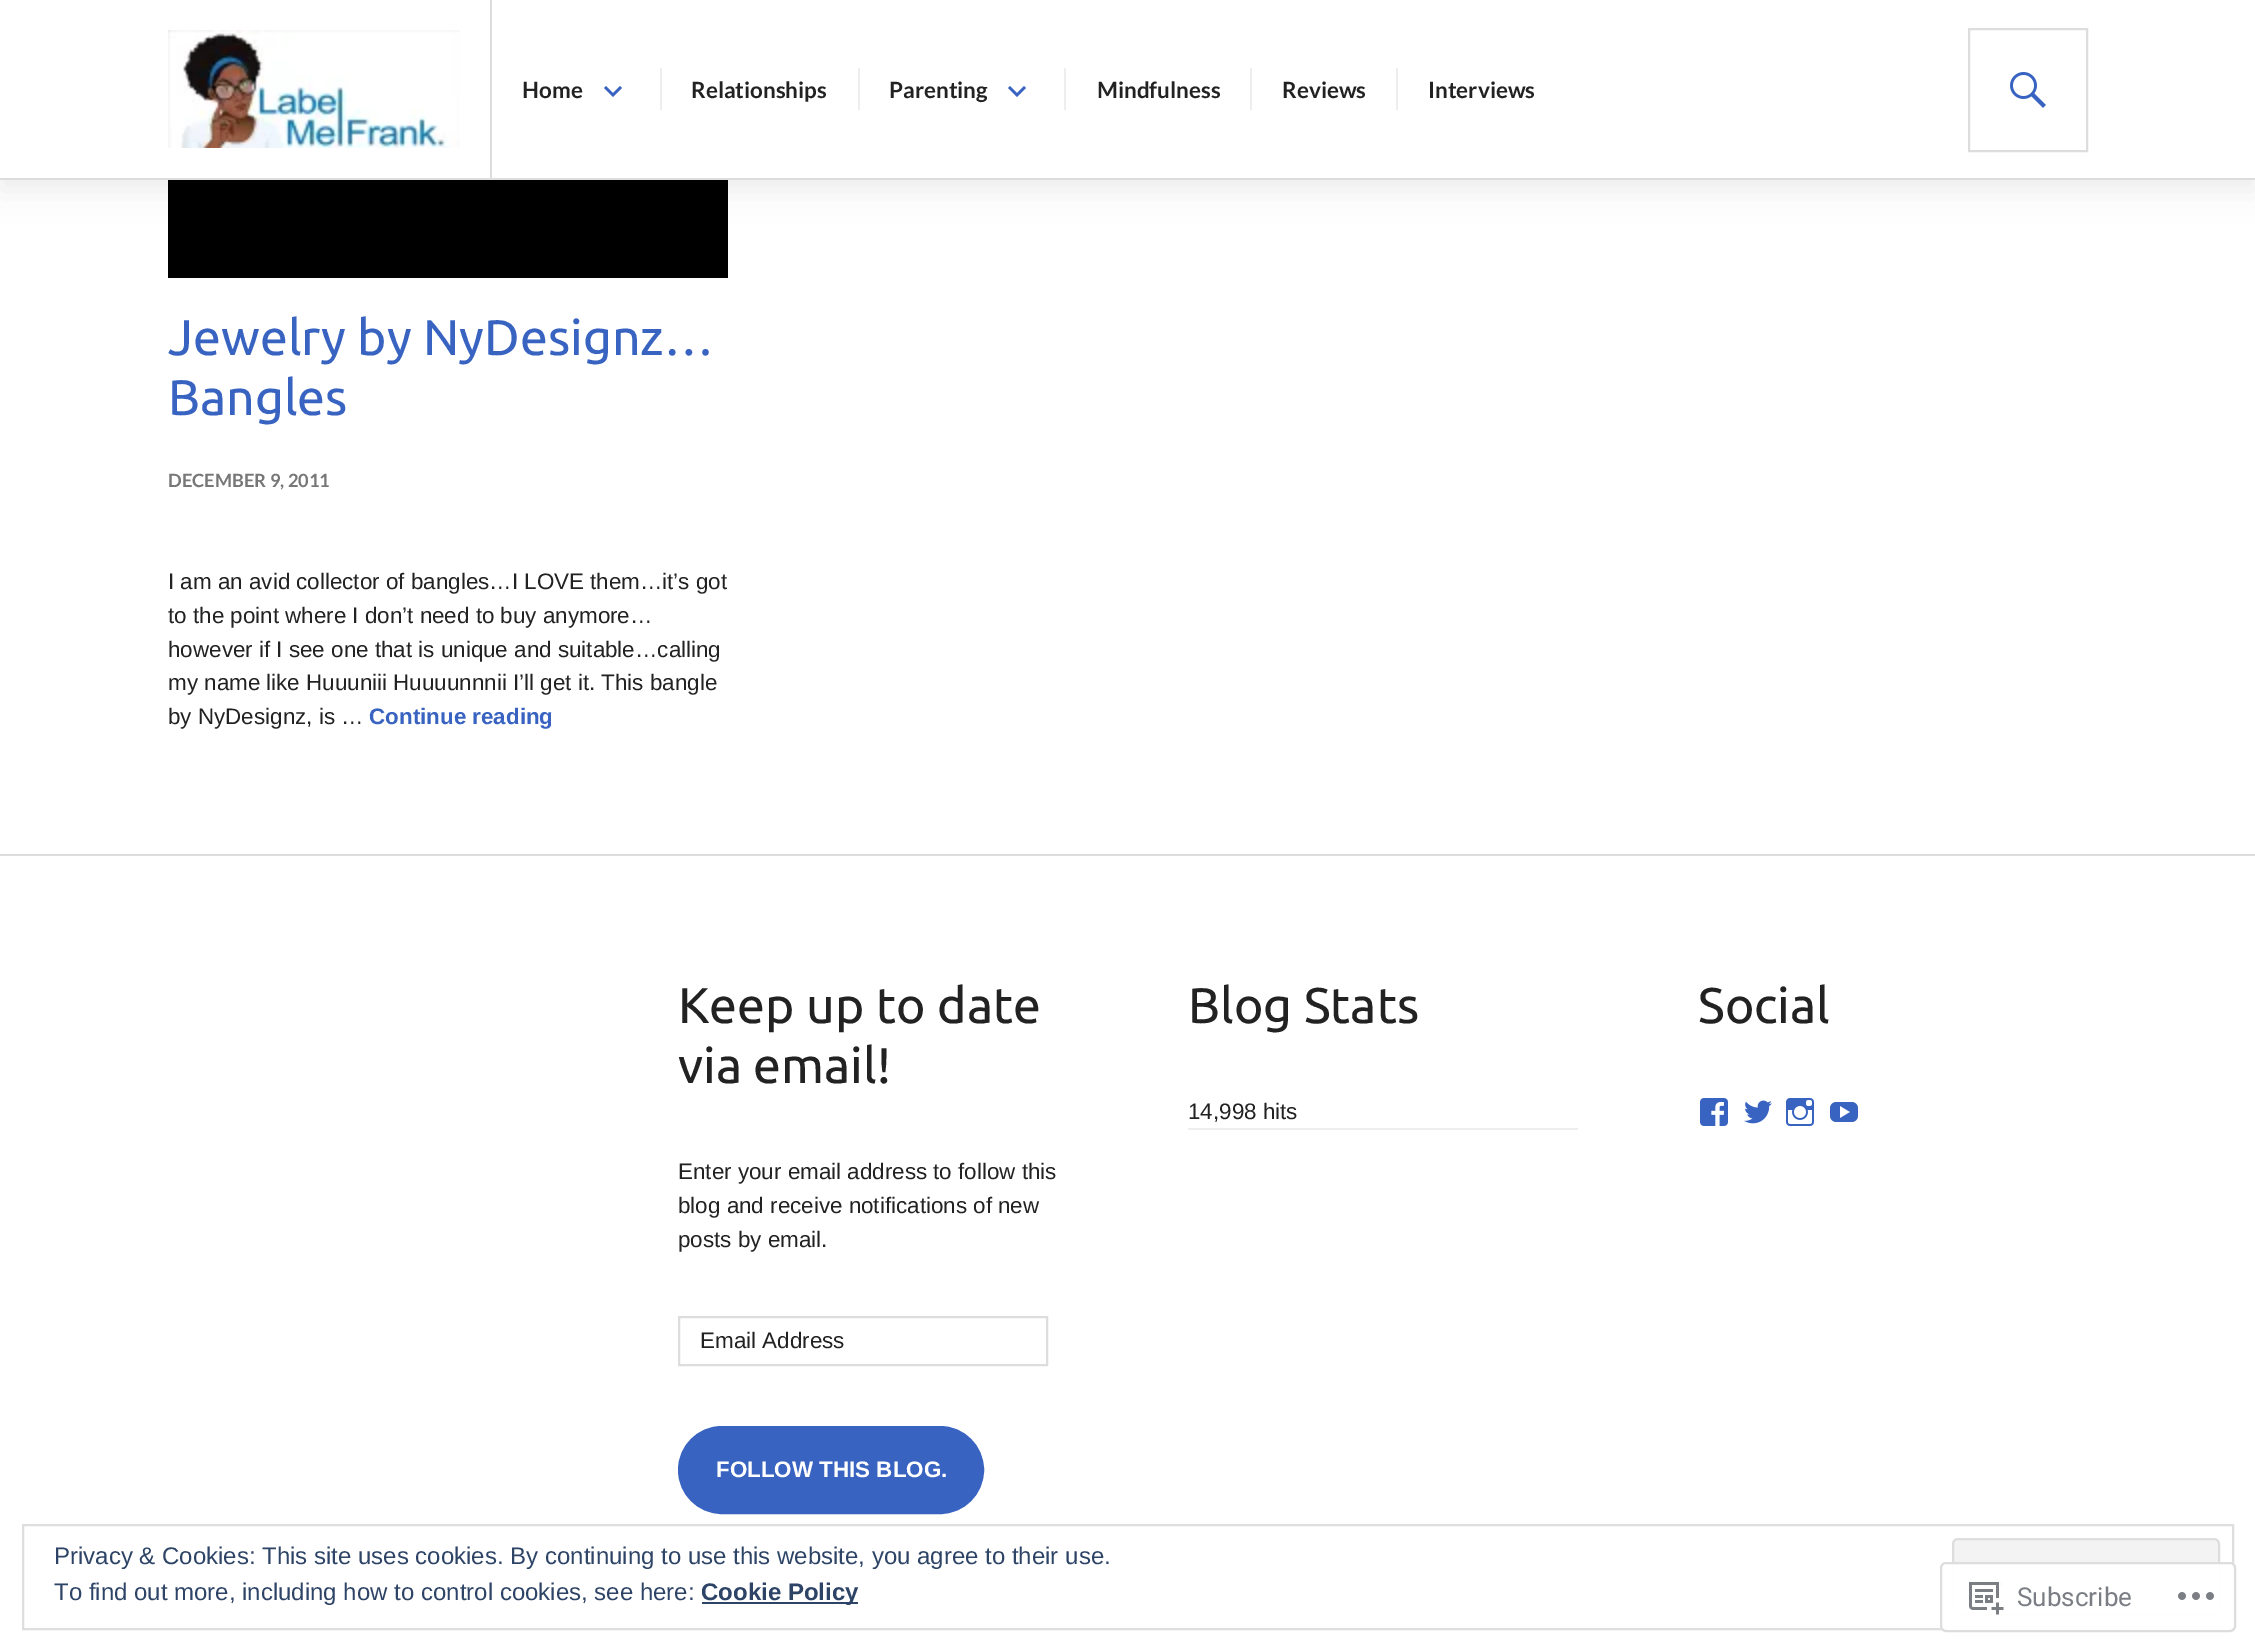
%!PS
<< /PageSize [2255 1652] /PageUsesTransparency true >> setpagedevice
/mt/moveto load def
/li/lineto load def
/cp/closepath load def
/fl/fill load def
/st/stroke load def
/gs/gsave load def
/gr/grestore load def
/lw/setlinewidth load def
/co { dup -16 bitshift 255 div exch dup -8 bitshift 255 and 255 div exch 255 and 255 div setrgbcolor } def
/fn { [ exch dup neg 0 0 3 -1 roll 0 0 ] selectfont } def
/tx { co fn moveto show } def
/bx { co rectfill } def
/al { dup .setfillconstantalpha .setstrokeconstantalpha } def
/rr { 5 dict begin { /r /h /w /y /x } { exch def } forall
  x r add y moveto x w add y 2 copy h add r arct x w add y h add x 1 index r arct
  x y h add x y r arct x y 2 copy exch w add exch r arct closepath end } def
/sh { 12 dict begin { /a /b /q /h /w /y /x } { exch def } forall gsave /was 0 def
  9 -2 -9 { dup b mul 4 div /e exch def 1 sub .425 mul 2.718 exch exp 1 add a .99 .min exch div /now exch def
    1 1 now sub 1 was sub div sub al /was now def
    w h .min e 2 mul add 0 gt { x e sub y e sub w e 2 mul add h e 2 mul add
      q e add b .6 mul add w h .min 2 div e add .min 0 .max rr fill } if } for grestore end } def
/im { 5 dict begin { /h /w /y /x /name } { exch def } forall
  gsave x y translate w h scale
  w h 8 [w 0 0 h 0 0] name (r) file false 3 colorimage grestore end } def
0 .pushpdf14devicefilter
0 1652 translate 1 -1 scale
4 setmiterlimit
0 0 2255 1652 16#FFFFFF bx
168 180 560 98 16#000000 bx
0 10 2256 180 0 15 .07 sh
0 0 2255 178 16#FFFFFF bx
0 178 2255 2 16#DDDDDD bx
(media/1.raw) 168 30 292 118 im
490 0 2 178 16#DDDDDD bx
16#3863C1 co
620 86 mt 622 88 li 613 97 li 604 88 li 606 86 li 613 93 li cp fl
660 68 2 42 16#EEEEEE bx
858 68 2 42 16#EEEEEE bx
16#3863C1 co
1024 86 mt 1026 88 li 1017 97 li 1008 88 li 1010 86 li 1017 93 li cp fl
1064 68 2 42 16#EEEEEE bx
1250 68 2 42 16#EEEEEE bx
1396 68 2 42 16#EEEEEE bx
16#DDDDDD co
2 lw
1969 29 118 122 rectstroke
(media/2.raw) 2010 72 36 36 im
0 854 2255 2 16#DDDDDD bx
679 1317 368 48 rectstroke
16#3863C1 co
680 1428 302 84 42 rr gs fl gr
4 lw
st
1188 1128 390 2 16#EEEEEE bx
(media/3.raw) 1700 1098 28 28 im
(media/4.raw) 1744 1100 28 24 im
(media/5.raw) 1786 1098 28 28 im
(media/6.raw) 1830 1102 28 20 im
16#DEDEDE co
2 lw
23 1525 2210 104 rectstroke
16#F3F3F3 co
1953 1539 266 76 5 rr gs fl gr
16#DEDEDE co
st
702 1602 156 2 16#2E4467 bx
0.98 al
16#FFFFFF co
1940 1562 296 70 6 rr fl
16#DCDCDE co
1941 1563 294 68 5 rr st
1 al
(media/7.raw) 1969 1582 35 33 im
(media/8.raw) 2178 1592 36 8 im
(Home) 522 98 /Lato-Bold 22.4 16#222222 tx
(Relationships) 691 98 /Lato-Bold 22.4 16#222222 tx
(Parenting) 889 98 /Lato-Bold 22.4 16#222222 tx
(Mindfulness) 1097 98 /Lato-Bold 22.4 16#222222 tx
(Reviews) 1282 98 /Lato-Bold 22.4 16#222222 tx
(Interviews) 1428 98 /Lato-Bold 22.4 16#222222 tx
(Jewelry by NyDesignz…) 168 355 /Ubuntu-Regular 50 16#3863C1 tx
(Bangles) 168 415 /Ubuntu-Regular 50 16#3863C1 tx
(DECEMBER 9, 2011) 168 487 /Lato-Bold 18.25 16#777777 tx
(I am an avid collector of bangles…I LOVE them…it’s got) 168 589 /Arimo-Regular 22.4 16#222222 tx
(to the point where I don’t need to buy anymore…) 168 623 /Arimo-Regular 22.4 16#222222 tx
(however if I see one that is unique and suitable…calling) 168 657 /Arimo-Regular 22.4 16#222222 tx
(my name like Huuuniii Huuuunnnii I’ll get it. This bangle) 168 690 /Arimo-Regular 22.4 16#222222 tx
(by NyDesignz, is …) 168 724 /Arimo-Regular 22.4 16#222222 tx
(Continue reading) 369 724 /Arimo-Bold 22.4 16#3863C1 tx
(Keep up to date) 678 1023 /Ubuntu-Regular 50 16#222222 tx
(via email!) 678 1083 /Ubuntu-Regular 50 16#222222 tx
(Enter your email address to follow this) 678 1179 /Arimo-Regular 22.4 16#222222 tx
(blog and receive notifications of new) 678 1213 /Arimo-Regular 22.4 16#222222 tx
(posts by email.) 678 1247 /Arimo-Regular 22.4 16#222222 tx
(Email Address) 700 1348 /Arimo-Regular 22.4 16#222222 tx
(FOLLOW THIS BLOG.) 716 1477 /Arimo-Bold 22.4 16#FFFFFF tx
(Blog Stats) 1188 1023 /Ubuntu-Regular 50 16#222222 tx
(14,998 hits) 1188 1119 /Arimo-Regular 22.4 16#222222 tx
(Social) 1698 1023 /Ubuntu-Regular 50 16#222222 tx
(Privacy & Cookies: This site uses cookies. By continuing to use this website, you agree to their use.) 54 1564 /Arimo-Regular 24 16#2E4467 tx
(To find out more, including how to control cookies, see here:) 54 1600 /Arimo-Regular 24 16#2E4467 tx
(Cookie Policy) 701 1600 /Arimo-Bold 24 16#2E4467 tx
(Subscribe) 2017 1606 /Roboto-Regular 26 16#7A7E84 tx
.poppdf14devicefilter showpage
